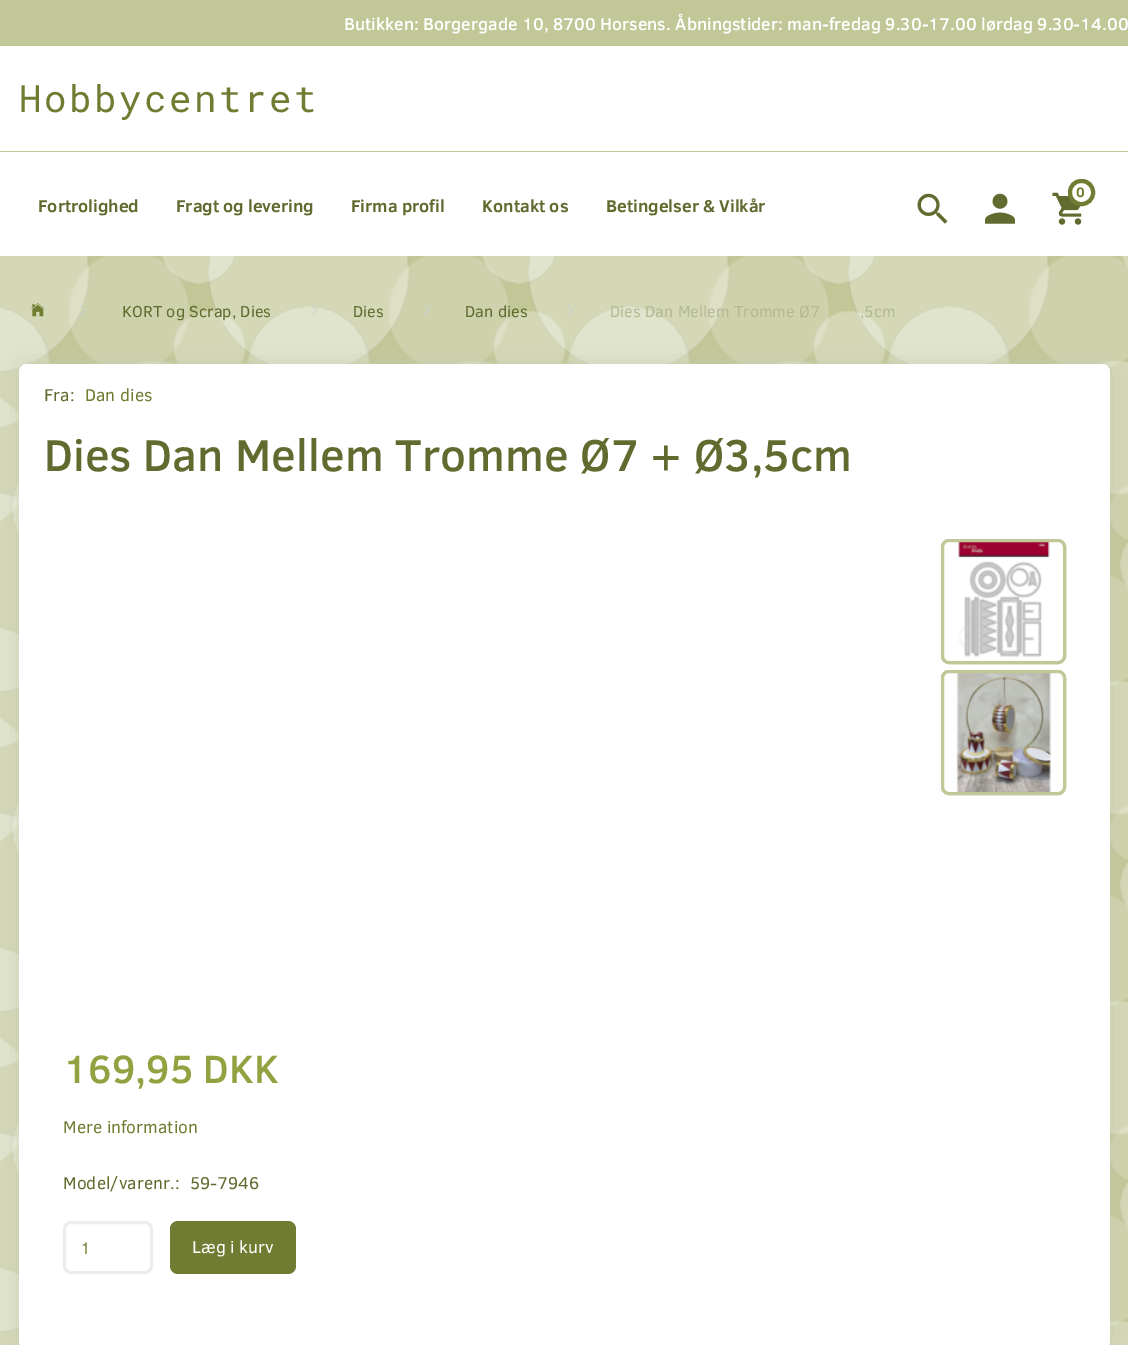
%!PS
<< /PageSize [1128 1345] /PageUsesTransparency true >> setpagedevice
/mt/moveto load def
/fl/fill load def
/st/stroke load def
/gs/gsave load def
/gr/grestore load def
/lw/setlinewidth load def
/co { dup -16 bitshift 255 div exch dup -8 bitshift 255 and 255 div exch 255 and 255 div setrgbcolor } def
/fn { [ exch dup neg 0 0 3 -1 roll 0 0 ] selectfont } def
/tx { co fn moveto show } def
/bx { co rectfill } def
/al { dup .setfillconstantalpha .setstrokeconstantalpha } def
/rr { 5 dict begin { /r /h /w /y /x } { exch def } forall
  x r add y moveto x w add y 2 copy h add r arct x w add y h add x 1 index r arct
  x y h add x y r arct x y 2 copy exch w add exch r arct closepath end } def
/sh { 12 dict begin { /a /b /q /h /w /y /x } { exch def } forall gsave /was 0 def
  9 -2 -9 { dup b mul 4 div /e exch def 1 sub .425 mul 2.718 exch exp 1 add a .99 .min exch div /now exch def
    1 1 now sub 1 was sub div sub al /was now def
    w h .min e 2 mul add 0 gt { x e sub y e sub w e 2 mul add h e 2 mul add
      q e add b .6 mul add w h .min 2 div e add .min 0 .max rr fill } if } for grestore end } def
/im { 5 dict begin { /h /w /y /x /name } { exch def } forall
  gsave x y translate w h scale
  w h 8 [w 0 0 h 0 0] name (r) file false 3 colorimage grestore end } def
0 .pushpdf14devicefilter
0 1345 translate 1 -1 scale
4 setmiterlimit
0 0 1128 1345 16#C2C797 bx
(media/1.raw) 0 256 1128 1089 im
0 46 1128 210 16#FFFFFF bx
0 151 1128 1 16#C2C797 bx
(media/2.raw) 917 193 31 31 im
(media/3.raw) 985 193 30 31 im
(media/4.raw) 1052 192 30 33 im
16#FFFFFF co
1070 181 23 23 11 rr gs fl gr
16#707C31 co
4 lw
st
(media/5.raw) 31 303 14 14 im
(media/6.raw) 80 305 6 10 im
(media/7.raw) 311 305 6 10 im
(media/8.raw) 424 305 6 10 im
(media/9.raw) 567 305 7 10 im
16#C1C5AB co
25 370 1079 973 1 12.5 1 sh
16#FFFFFF co
19 364 1091 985 8 rr fl
16#C2C797 co
3 lw
942.5 540.5 122 122 6.5 rr st
(media/10.raw) 943 541 121 121 im
942.5 540.5 122 122 6.5 rr st
942.5 671.5 122 122 6.5 rr st
(media/11.raw) 943 672 121 121 im
942.5 671.5 122 122 6.5 rr st
16#EDEDED co
64.5 1222.5 87 50 6.5 rr st
16#707C31 co
170 1221 126 53 8 rr fl
(Butikken: Borgergade 10, 8700 Horsens. Åbningstider: man-fredag 9.30-17.00 lørdag 9.30-14.00) 344 30 /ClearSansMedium-Medium 17.5 16#FFFFFF tx
/RobotoMono-Regular 37.5 fn
16#707C31 co
19 112 mt 2.5 0 (Hobbycentret) ashow
(0) 1076 197 /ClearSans-Bold 14 16#707C31 tx
(Fortrolighed) 38 212 /ClearSans-Bold 17.5 16#626B2F tx
(Fragt og levering) 176 212 /ClearSans-Bold 17.5 16#626B2F tx
(Firma profil) 351 212 /ClearSans-Bold 17.5 16#626B2F tx
(Kontakt os) 482 212 /ClearSans-Bold 17.5 16#626B2F tx
(Betingelser & Vilkår) 606 212 /ClearSans-Bold 17.5 16#626B2F tx
(KORT og Scrap, Dies) 122 317 /ClearSans-Regular 16.25 16#626B2F tx
(Dies) 353 317 /ClearSans-Regular 16.25 16#626B2F tx
(Dan dies) 465 317 /ClearSans-Regular 16.25 16#626B2F tx
(Dies Dan Mellem Tromme Ø7) 610 317 /ClearSans-Regular 16.25 16#B4B993 tx
(,5cm) 860 317 /ClearSans-Regular 16.25 16#B4B993 tx
(Fra:) 44 401 /ClearSans-Regular 17.5 16#626B2F tx
(Dan dies) 85 401 /ClearSans-Regular 17.5 16#707C31 tx
(Dies Dan Mellem Tromme Ø7 + Ø3,5cm) 44 471 /ClearSansMedium-Medium 45.5 16#626B2F tx
(169,95 DKK) 63 1083 /ClearSansMedium-Medium 40.25 16#93A240 tx
(Mere information) 63 1133 /ClearSans-Regular 17.5 16#707C31 tx
(Model/varenr.:) 63 1189 /ClearSans-Regular 17.5 16#626B2F tx
(59-7946) 190 1189 /ClearSans-Regular 17.5 16#626B2F tx
(1) 80 1254 /ClearSans-Regular 17.5 16#79843A tx
(Læg i kurv) 192 1253 /ClearSans-Regular 17.5 16#FFFFFF tx
.poppdf14devicefilter showpage
